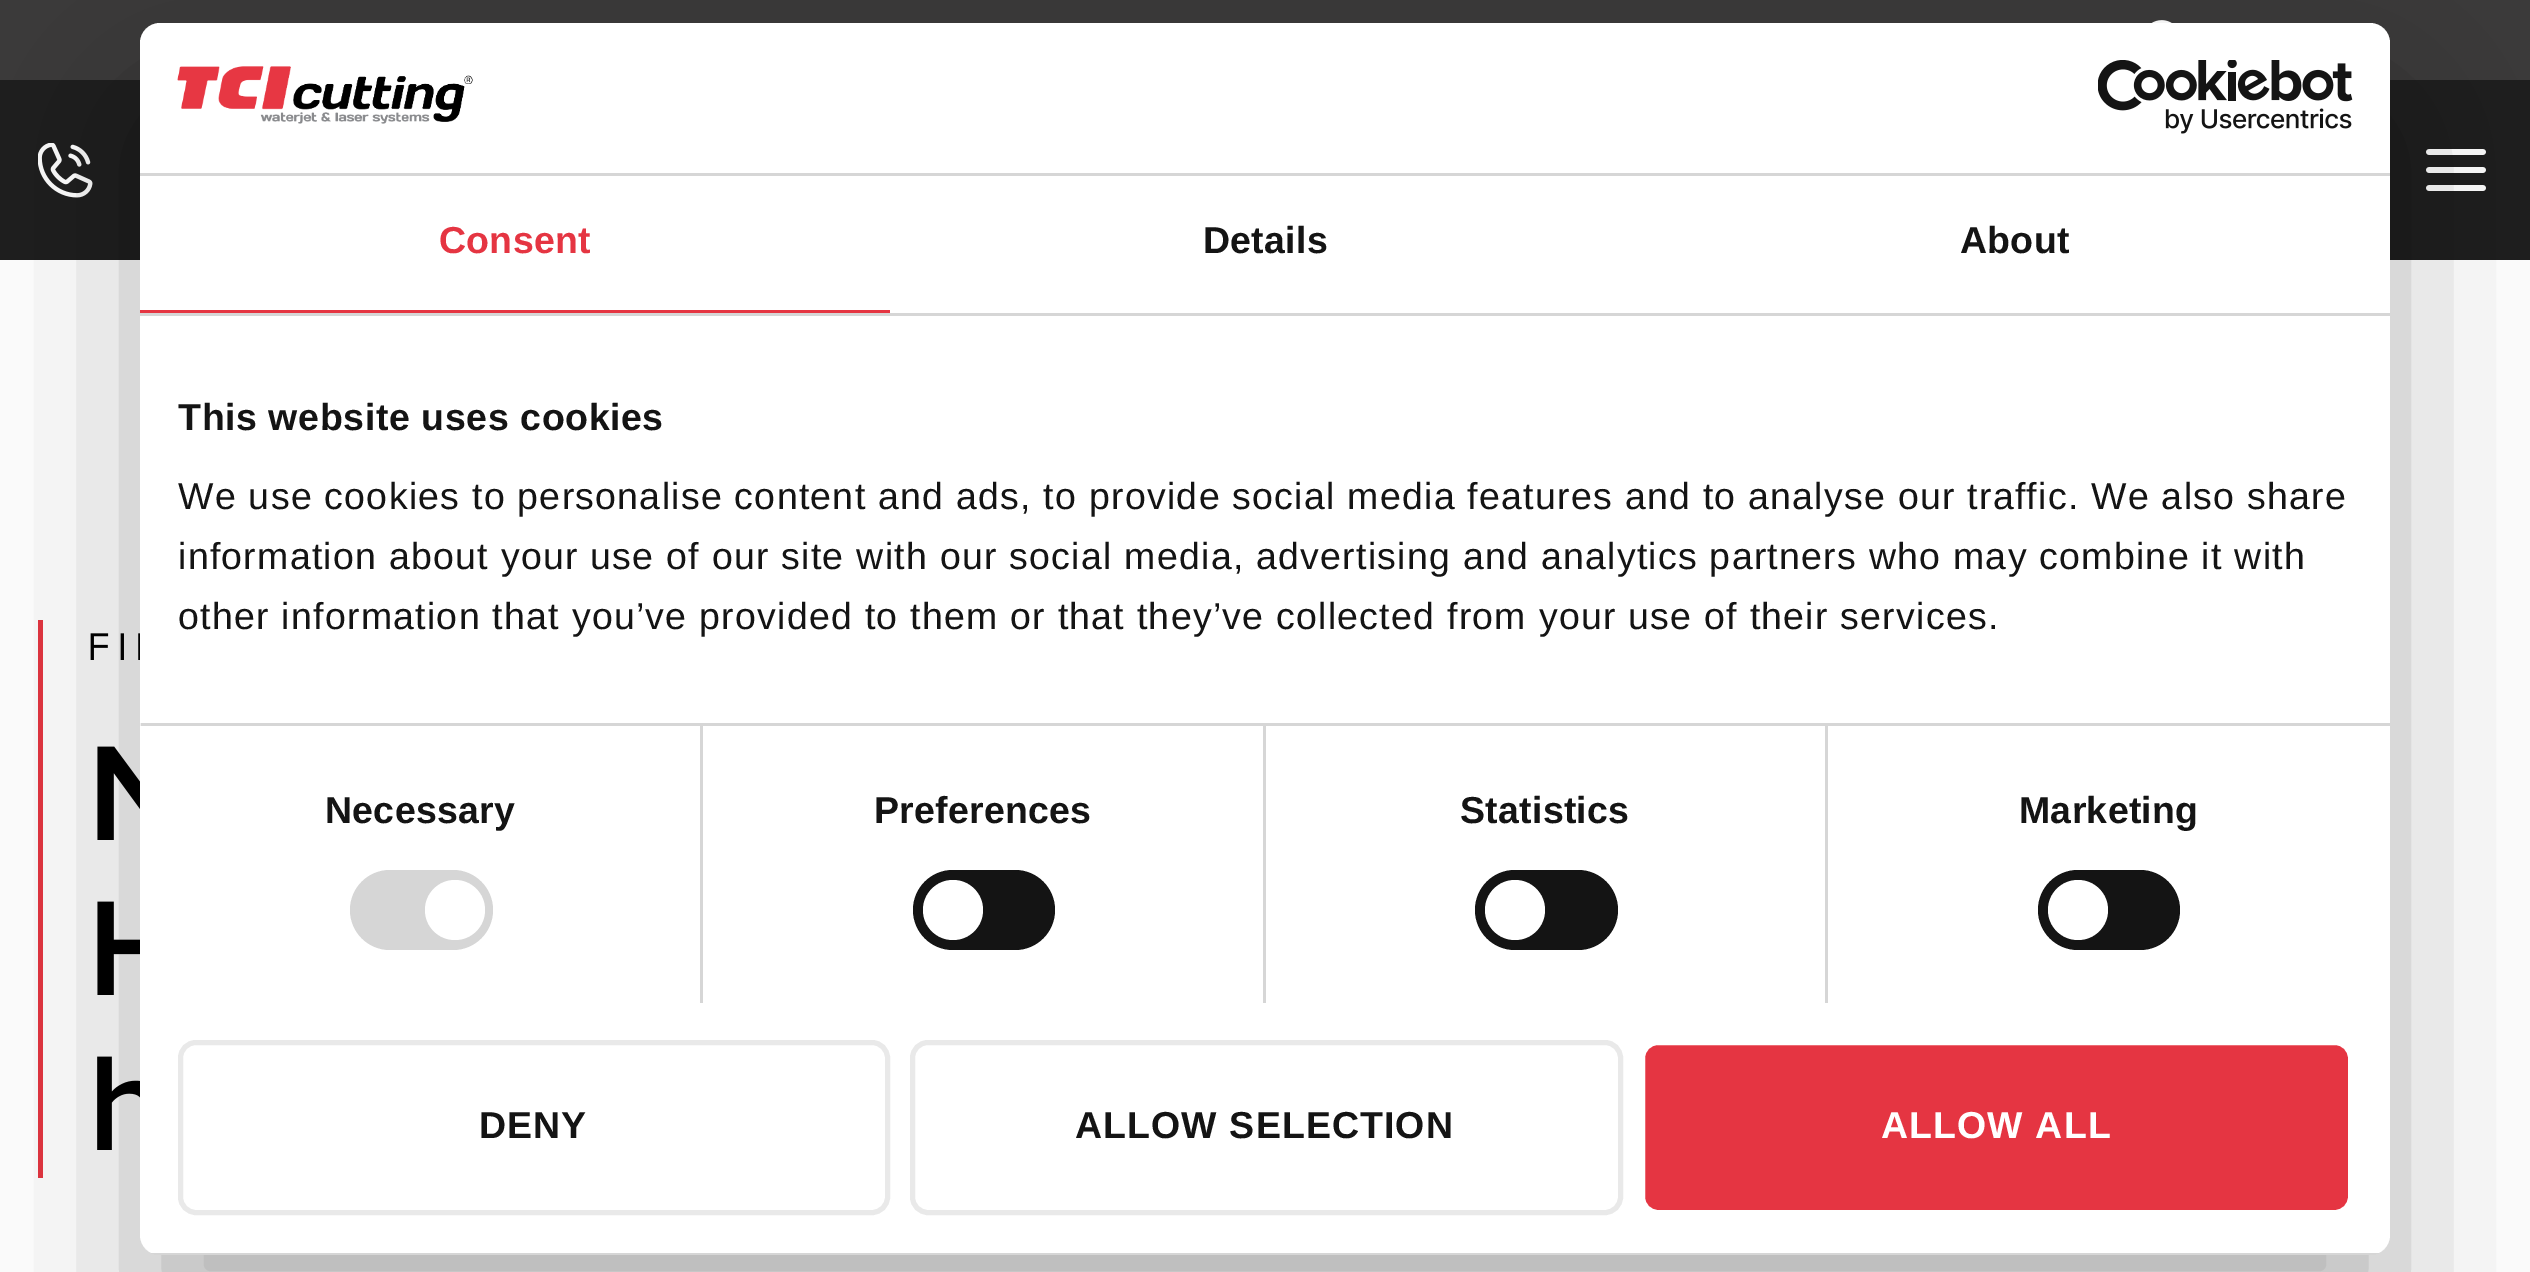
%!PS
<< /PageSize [2530 1272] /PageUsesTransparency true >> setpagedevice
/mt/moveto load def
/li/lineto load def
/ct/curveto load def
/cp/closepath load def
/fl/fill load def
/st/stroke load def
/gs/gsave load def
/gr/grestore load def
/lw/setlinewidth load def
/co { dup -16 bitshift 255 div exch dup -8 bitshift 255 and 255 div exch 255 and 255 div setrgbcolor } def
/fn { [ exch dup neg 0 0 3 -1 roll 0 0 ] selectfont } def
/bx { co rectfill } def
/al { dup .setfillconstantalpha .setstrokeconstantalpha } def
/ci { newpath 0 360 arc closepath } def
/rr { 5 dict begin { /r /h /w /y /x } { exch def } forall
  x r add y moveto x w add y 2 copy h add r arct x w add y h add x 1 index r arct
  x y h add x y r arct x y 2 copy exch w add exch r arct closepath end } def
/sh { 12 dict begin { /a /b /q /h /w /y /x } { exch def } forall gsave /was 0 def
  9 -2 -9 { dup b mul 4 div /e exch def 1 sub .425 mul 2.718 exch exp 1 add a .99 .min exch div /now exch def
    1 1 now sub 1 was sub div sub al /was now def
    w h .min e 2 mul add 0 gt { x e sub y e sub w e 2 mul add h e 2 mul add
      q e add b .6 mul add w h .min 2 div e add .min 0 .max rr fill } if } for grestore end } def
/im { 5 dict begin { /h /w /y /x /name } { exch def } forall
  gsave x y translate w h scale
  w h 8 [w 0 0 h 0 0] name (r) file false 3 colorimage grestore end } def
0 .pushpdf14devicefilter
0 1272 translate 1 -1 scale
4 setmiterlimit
0 0 2530 1272 16#FFFFFF bx
0 0 2530 80 16#3B3A3A bx
(media/1.raw) 2151 20 21 3 im
0 80 2530 180 16#1E1E1E bx
(media/2.raw) 38 143 55 55 im
(media/3.raw) 2426 149 60 42 im
38 620 5 558 16#E53542 bx
(media/4.raw) 90 633 50 27 im
(media/5.raw) 97 746 43 94 im
(media/6.raw) 97 901 43 94 im
(media/7.raw) 97 1056 43 94 im
gs
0 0 mt 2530 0 li 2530 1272 li 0 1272 li cp 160 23 mt 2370 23 li 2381 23 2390 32 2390 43 ct 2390 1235 li 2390 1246 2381 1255 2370 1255 ct 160 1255 li 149 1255 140 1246 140 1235 ct 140 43 li 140 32 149 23 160 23 ct cp eoclip newpath
16#000000 co
140 103 2250 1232 20 85 .3 sh
gr
16#FFFFFF co
140 23 2250 1232 20 rr fl
140 173 2250 3 16#D6D6D6 bx
(media/8.raw) 177 66 296 58 im
(media/9.raw) 2098 60 255 74 im
140 313 2250 3 16#D6D6D6 bx
140 310 750 3 16#E53542 bx
700 725 3 278 16#D6D6D6 bx
1263 725 3 278 16#D6D6D6 bx
1825 725 3 278 16#D6D6D6 bx
140 723 2250 3 16#D6D6D6 bx
140 723 1 3 16#F1F1F1 bx
16#D6D6D6 co
350 870 143 80 40 rr fl
16#FFFFFF co
455 910 30 ci fl
16#141414 co
913 870 142 80 40 rr fl
16#FFFFFF co
953 910 30 ci fl
16#141414 co
1475 870 143 80 40 rr fl
16#FFFFFF co
1515 910 30 ci fl
16#141414 co
2038 870 142 80 40 rr fl
16#FFFFFF co
2078 910 30 ci fl
gs
140 23 2250 1232 20 rr clip newpath
151 1253 2228 2 16#D6D6D6 bx
gr
16#E9E9E9 co
5 lw
180.5 1042.5 707 170 15.5 rr st
912.5 1042.5 708 170 15.5 rr st
16#E53542 co
1642.5 1042.5 708 170 15.5 rr gs fl gr
16#FFFFFF co
st
/LiberationSans-Bold 37.5 fn
16#E53542 co
439 253 mt .25 0 (Consent) ashow
16#141414 co
1203 253 mt .25 0 (Details) ashow
1960 253 mt .25 0 (About) ashow
178 430 mt .6 0 (This website uses cookies) ashow
/LiberationSans-Regular 37.5 fn
178 509 mt 1.25 0 (We use cookies to personalise content and ads, to provide social media features and to analyse our traffic. We also share) ashow
178 569 mt 1.25 0 (information about your use of our site with our social media, advertising and analytics partners who may combine it with) ashow
178 629 mt 1.25 0 (other information that you’ve provided to them or that they’ve collected from your use of their services.) ashow
/LiberationSans-Bold 37.5 fn
325 823 mt .25 0 (Necessary) ashow
874 823 mt .25 0 (Preferences) ashow
1460 823 mt .25 0 (Statistics) ashow
2019 823 mt .25 0 (Marketing) ashow
479 1138 mt 1.1 0 (DENY) ashow
1075 1138 mt 1.1 0 (ALLOW SELECTION) ashow
16#FFFFFF co
1881 1138 mt 1.1 0 (ALLOW ALL) ashow
.poppdf14devicefilter showpage
